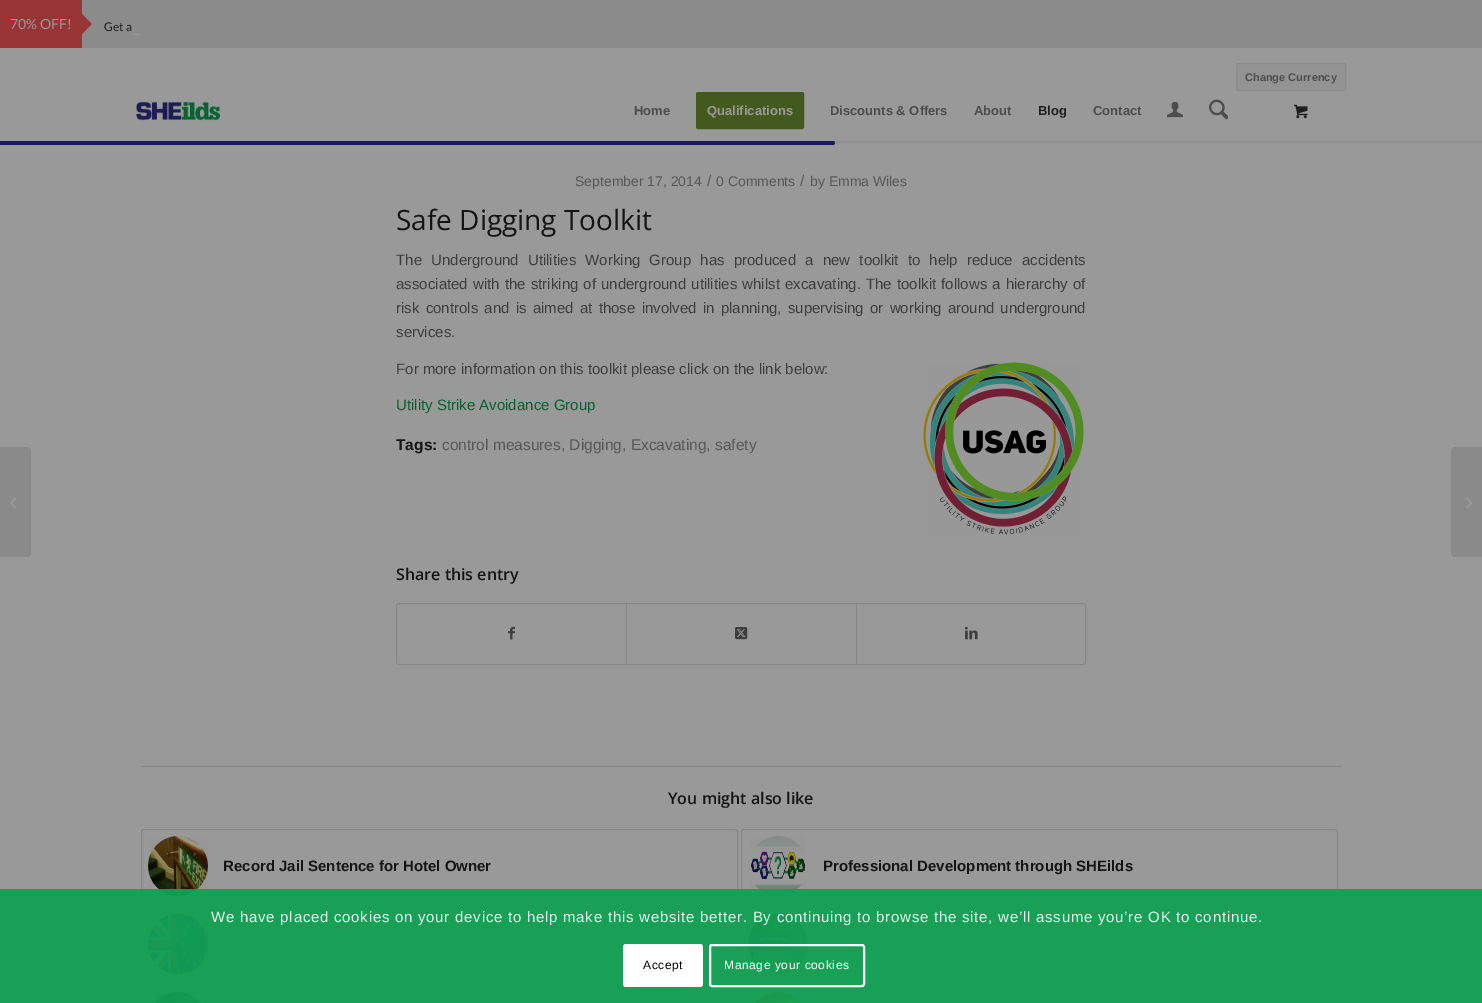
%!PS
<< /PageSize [1482 1003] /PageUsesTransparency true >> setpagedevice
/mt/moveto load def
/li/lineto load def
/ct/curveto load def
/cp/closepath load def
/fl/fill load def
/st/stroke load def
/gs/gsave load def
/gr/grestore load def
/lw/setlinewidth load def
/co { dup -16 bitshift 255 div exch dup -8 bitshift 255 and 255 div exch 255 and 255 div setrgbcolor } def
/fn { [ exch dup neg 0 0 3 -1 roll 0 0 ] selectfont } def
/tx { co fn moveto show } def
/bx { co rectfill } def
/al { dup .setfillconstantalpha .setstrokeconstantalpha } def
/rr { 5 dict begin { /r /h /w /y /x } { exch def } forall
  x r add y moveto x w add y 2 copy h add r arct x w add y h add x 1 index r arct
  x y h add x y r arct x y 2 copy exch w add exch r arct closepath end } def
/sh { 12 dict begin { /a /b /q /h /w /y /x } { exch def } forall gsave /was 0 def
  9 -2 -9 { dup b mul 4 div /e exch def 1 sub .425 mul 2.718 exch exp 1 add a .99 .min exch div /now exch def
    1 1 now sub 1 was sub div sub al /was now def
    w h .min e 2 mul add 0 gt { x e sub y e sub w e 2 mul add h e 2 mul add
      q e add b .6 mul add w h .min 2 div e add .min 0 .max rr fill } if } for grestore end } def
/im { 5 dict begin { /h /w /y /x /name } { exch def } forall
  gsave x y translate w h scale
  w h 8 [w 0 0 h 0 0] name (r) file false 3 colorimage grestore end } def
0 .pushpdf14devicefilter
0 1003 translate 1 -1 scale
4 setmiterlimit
0 0 1482 1003 16#999999 bx
16#000000 co
-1 47 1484 95 0 1 .1 sh
82 0 1400 48 16#8B8B8B bx
0 0 82 48 16#983434 bx
82 34 mt 82 14 li 92 24 li cp fl
133 34 7 1 16#999999 bx
0 48 1482 93 16#999999 bx
16#939393 co
1236.5 63.5 109 27 1.5 rr gs fl gr
16#8C8C8C co
st
(media/1.raw) 136 101 84 20 im
16#44591D co
697 93 106 35 1 rr gs fl gr
2 lw
st
(media/2.raw) 1167 101 16 17 im
(media/3.raw) 1209 99 19 21 im
(media/4.raw) 1294 104 14 15 im
16#1B1C52 co
0 141 mt 833 141 li 834 141 835 142 835 143 ct 835 144 834 145 833 145 ct 0 145 li cp fl
16#8A8A8A co
0 447 mt 27 447 li 29 447 31 449 31 451 ct 31 553 li 31 555 29 557 27 557 ct 0 557 li cp fl
(media/5.raw) 10 497 6 12 im
(media/6.raw) 923 362 161 173 im
16#878787 co
1 lw
396.5 603.5 689 61 2.5 rr st
(media/7.raw) 508 626 7 14 im
626 604 1 60 16#878787 bx
(media/8.raw) 735 627 13 13 im
856 604 1 60 16#878787 bx
(media/9.raw) 965 626 13 14 im
141 766 1200 1 16#878787 bx
141.5 829.5 596 73 2.5 rr st
(media/10.raw) 148 836 60 60 im
741.5 829.5 596 73 2.5 rr st
(media/11.raw) 751 836 55 60 im
141.5 907.5 596 73 2.5 rr st
(media/12.raw) 148 914 60 60 im
741.5 907.5 596 73 2.5 rr st
(media/13.raw) 748 914 60 60 im
141.5 985.5 596 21 2.5 rr st
(media/14.raw) 155 992 46 11 im
741.5 985.5 596 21 2.5 rr st
(media/15.raw) 755 992 46 11 im
16#8A8A8A co
1455 447 mt 1482 447 li 1482 557 li 1455 557 li 1453 557 1451 555 1451 553 ct 1451 451 li 1451 449 1453 447 1455 447 ct cp fl
(media/16.raw) 1466 497 6 12 im
0.95 al
0 889 1482 114 16#12A053 bx
1 al
16#FFFFFF co
623 944 80 43 3 rr fl
2 lw
710 945 154 41 2 rr st
(70% OFF!) 10 29 /Lato-Regular 14 16#999999 tx
(Get a) 104 31 /Lato-Regular 12 16#1F1F1F tx
(Change Currency) 1245 81 /LiberationSans-Bold 11 16#4D4D4D tx
(Home) 634 115 /LiberationSans-Bold 13 16#4D4D4D tx
(Qualifications) 707 115 /LiberationSans-Bold 13 16#999999 tx
(Discounts & Offers) 830 115 /LiberationSans-Bold 13 16#4D4D4D tx
(About) 974 115 /LiberationSans-Bold 13 16#4D4D4D tx
(Blog) 1038 115 /LiberationSans-Bold 13 16#1F1F1F tx
(Contact) 1093 115 /LiberationSans-Bold 13 16#4D4D4D tx
(September 17, 2014) 575 186 /LiberationSans-Regular 14 16#575757 tx
(/) 707 186 /LiberationSans-Regular 15.5 16#575757 tx
(0 Comments) 716 186 /LiberationSans-Regular 14 16#575757 tx
(/) 800 186 /LiberationSans-Regular 15.5 16#575757 tx
(by Emma Wiles) 810 186 /LiberationSans-Regular 14 16#575757 tx
(Safe Digging Toolkit) 396 230 /OpenSans-Regular 28 16#141414 tx
/LiberationSans-Regular 15 fn
16#3D3D3D co
396 265 mt 5 0 32 (The Underground Utilities Working Group has produced a new toolkit to help reduce accidents) widthshow
396 289 mt 1 0 32 (associated with the striking of underground utilities whilst excavating. The toolkit follows a hierarchy of) widthshow
396 313 mt 2.1 0 32 (risk controls and is aimed at those involved in planning, supervising or working around underground) widthshow
(services.) 396 337 /LiberationSans-Regular 15 16#3D3D3D tx
(For more information on this toolkit please click on the link below:) 396 374 /LiberationSans-Regular 15 16#3D3D3D tx
(Utility Strike Avoidance Group) 396 410 /LiberationSans-Regular 15 16#026132 tx
(Tags:) 396 450 /LiberationSans-Bold 15.5 16#141414 tx
(control measures, Digging, Excavating, safety) 442 450 /LiberationSans-Regular 15.5 16#575757 tx
(Share this entry) 396 580 /OpenSans-SemiBold 16 16#141414 tx
(You might also like) 668 804 /OpenSans-SemiBold 16 16#141414 tx
(Record Jail Sentence for Hotel Owner) 223 871 /LiberationSans-Bold 15 16#141414 tx
(Professional Development through SHEilds) 823 871 /LiberationSans-Bold 15 16#141414 tx
/LiberationSans-Regular 15 fn
16#E8F5EE co
211 922 mt .75 0 (We have placed cookies on your device to help make this website better. By continuing to browse the site, we’ll assume you’re OK to continue.) ashow
/LiberationSans-Regular 12 fn
16#000000 co
643 969 mt .6 0 (Accept) ashow
16#FFFFFF co
724 969 mt .6 0 (Manage your cookies) ashow
.poppdf14devicefilter showpage
